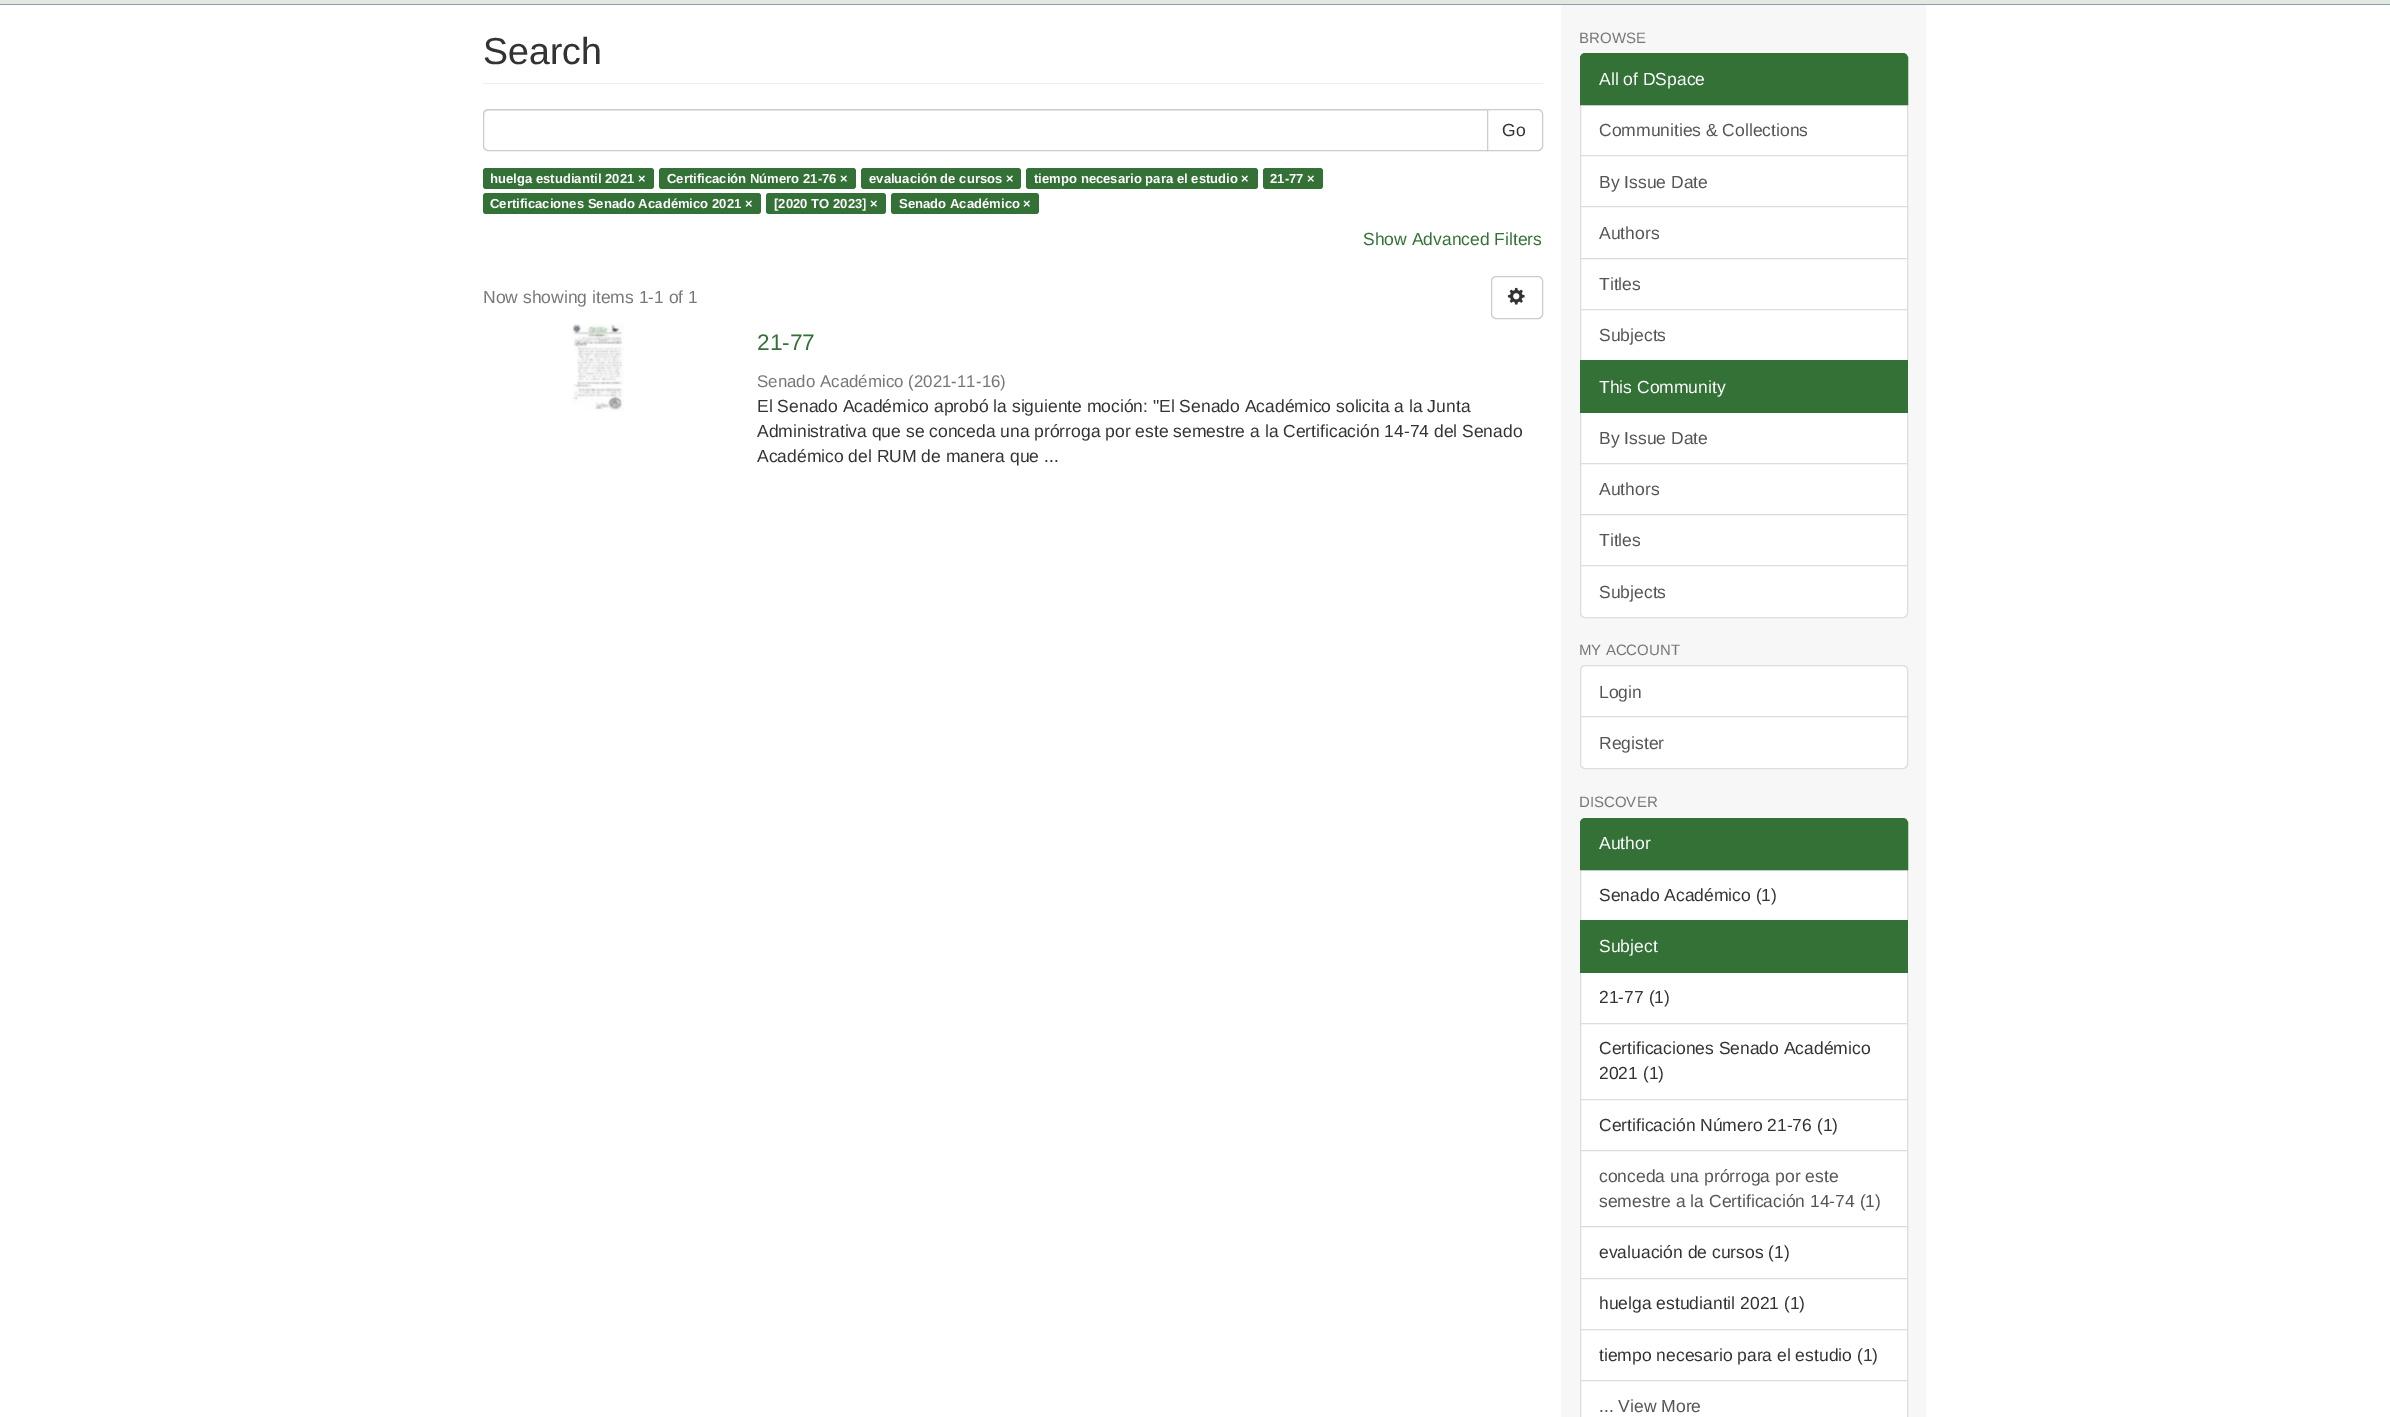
%!PS
<< /PageSize [2390 1417] >> setpagedevice
/mt/moveto load def
/li/lineto load def
/ct/curveto load def
/cp/closepath load def
/fl/fill load def
/st/stroke load def
/gs/gsave load def
/gr/grestore load def
/co { dup -16 bitshift 255 div exch dup -8 bitshift 255 and 255 div exch 255 and 255 div setrgbcolor } def
/fn { [ exch dup neg 0 0 3 -1 roll 0 0 ] selectfont } def
/tx { co fn moveto show } def
/bx { co rectfill } def
/rr { 5 dict begin { /r /h /w /y /x } { exch def } forall
  x r add y moveto x w add y 2 copy h add r arct x w add y h add x 1 index r arct
  x y h add x y r arct x y 2 copy exch w add exch r arct closepath end } def
/im { 5 dict begin { /h /w /y /x /name } { exch def } forall
  gsave x y translate w h scale
  w h 8 [w 0 0 h 0 0] name (r) file false 3 colorimage grestore end } def
0 1417 translate 1 -1 scale
4 setmiterlimit
0 0 2390 1417 16#FFFFFF bx
0 0 2390 4 16#E1E9E1 bx
0 4 2390 1 16#8B9EB2 bx
1561 5 365 1412 16#F7F7F7 bx
483 83 1060 1 16#EEEEEE bx
16#CCCCCC co
1486.5 109.5 mt 1538 109.5 li 1540.5 109.5 1542.5 111.5 1542.5 114 ct 1542.5 146 li 1542.5 148.5 1540.5 150.5 1538 150.5 ct 1486.5 150.5 li cp st
16#FFFFFF co
488 109 mt 1488 109 li 1488 151 li 488 151 li 485 151 483 149 483 146 ct 483 114 li 483 111 485 109 488 109 ct cp fl
16#ECECEC co
488 111 mt 1486 111 li 1486 110 li 488 110 li 485 110 484 112 484 115 ct 484 113 485 111 488 111 ct cp fl
16#CCCCCC co
488 109.5 mt 1487.5 109.5 li 1487.5 150.5 li 488 150.5 li 485.5 150.5 483.5 148.5 483.5 146 ct 483.5 114 li 483.5 111.5 485.5 109.5 488 109.5 ct cp st
16#337137 co
483 168 171 21 3 rr fl
659 168 197 21 3 rr fl
861 168 160 21 3 rr fl
1026 168 232 21 3 rr fl
1263 168 60 21 3 rr fl
483 193 278 21 3 rr fl
766 193 120 21 3 rr fl
891 193 148 21 3 rr fl
16#CCCCCC co
1491.5 276.5 51 42 4.5 rr st
(media/1.raw) 1507 287 18 18 im
(media/2.raw) 572 324 52 87 im
16#FFFFFF co
1580.5 104.5 mt 1907.5 104.5 li 1907.5 155.5 li 1580.5 155.5 li cp gs fl gr
16#DDDDDD co
st
16#337137 co
1585 53.5 mt 1903 53.5 li 1905.5 53.5 1907.5 55.5 1907.5 58 ct 1907.5 104.5 li 1580.5 104.5 li 1580.5 58 li 1580.5 55.5 1582.5 53.5 1585 53.5 ct cp gs fl gr
st
1581 156 326 50 16#FFFFFF bx
16#DDDDDD co
1580.5 155.5 327 52 rectstroke
16#FFFFFF co
1580.5 206.5 mt 1907.5 206.5 li 1907.5 258.5 li 1580.5 258.5 li cp gs fl gr
16#DDDDDD co
st
16#FFFFFF co
1580.5 258.5 mt 1907.5 258.5 li 1907.5 309.5 li 1580.5 309.5 li cp gs fl gr
16#DDDDDD co
st
16#FFFFFF co
1580.5 309.5 mt 1907.5 309.5 li 1907.5 360.5 li 1580.5 360.5 li cp gs fl gr
16#DDDDDD co
st
1581 413 326 50 16#FFFFFF bx
16#DDDDDD co
1580.5 411.5 327 52 rectstroke
1580 360 328 53 16#337137 bx
16#FFFFFF co
1580.5 463.5 mt 1907.5 463.5 li 1907.5 514.5 li 1580.5 514.5 li cp gs fl gr
16#DDDDDD co
st
16#FFFFFF co
1580.5 514.5 mt 1907.5 514.5 li 1907.5 565.5 li 1580.5 565.5 li cp gs fl gr
16#DDDDDD co
st
16#FFFFFF co
1580.5 565.5 mt 1907.5 565.5 li 1907.5 613 li 1907.5 615.5 1905.5 617.5 1903 617.5 ct 1585 617.5 li 1582.5 617.5 1580.5 615.5 1580.5 613 ct cp gs fl gr
16#DDDDDD co
st
16#FFFFFF co
1585 665.5 mt 1903 665.5 li 1905.5 665.5 1907.5 667.5 1907.5 670 ct 1907.5 717.5 li 1580.5 717.5 li 1580.5 670 li 1580.5 667.5 1582.5 665.5 1585 665.5 ct cp gs fl gr
16#DDDDDD co
st
16#FFFFFF co
1580.5 716.5 mt 1907.5 716.5 li 1907.5 764 li 1907.5 766.5 1905.5 768.5 1903 768.5 ct 1585 768.5 li 1582.5 768.5 1580.5 766.5 1580.5 764 ct cp gs fl gr
16#DDDDDD co
st
16#FFFFFF co
1580.5 869.5 mt 1907.5 869.5 li 1907.5 920.5 li 1580.5 920.5 li cp gs fl gr
16#DDDDDD co
st
16#337137 co
1585 818.5 mt 1903 818.5 li 1905.5 818.5 1907.5 820.5 1907.5 823 ct 1907.5 869.5 li 1580.5 869.5 li 1580.5 823 li 1580.5 820.5 1582.5 818.5 1585 818.5 ct cp gs fl gr
st
1581 973 326 50 16#FFFFFF bx
16#DDDDDD co
1580.5 971.5 327 52 rectstroke
1580 920 328 53 16#337137 bx
16#FFFFFF co
1580.5 1023.5 mt 1907.5 1023.5 li 1907.5 1099.5 li 1580.5 1099.5 li cp gs fl gr
16#DDDDDD co
st
16#FFFFFF co
1580.5 1099.5 mt 1907.5 1099.5 li 1907.5 1150.5 li 1580.5 1150.5 li cp gs fl gr
16#DDDDDD co
st
1581 1151 326 75 16#FFFFFF bx
16#DDDDDD co
1580.5 1150.5 327 77 rectstroke
16#FFFFFF co
1580.5 1226.5 mt 1907.5 1226.5 li 1907.5 1278.5 li 1580.5 1278.5 li cp gs fl gr
16#DDDDDD co
st
16#FFFFFF co
1580.5 1278.5 mt 1907.5 1278.5 li 1907.5 1329.5 li 1580.5 1329.5 li cp gs fl gr
16#DDDDDD co
st
16#FFFFFF co
1580.5 1329.5 mt 1907.5 1329.5 li 1907.5 1380.5 li 1580.5 1380.5 li cp gs fl gr
16#DDDDDD co
st
16#FFFFFF co
1580.5 1380.5 mt 1907.5 1380.5 li 1907.5 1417.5 li 1580.5 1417.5 li cp gs fl gr
16#DDDDDD co
st
(Search) 483 64 /LiberationSans-Regular 37.5 16#333333 tx
(Go) 1502 136 /LiberationSans-Regular 17.5 16#333333 tx
(huelga estudiantil 2021 ×) 490 183 /LiberationSans-Bold 13.1 16#FFFFFF tx
(Certificación Número 21-76 ×) 667 183 /LiberationSans-Bold 13.1 16#FFFFFF tx
(evaluación de cursos ×) 869 183 /LiberationSans-Bold 13.1 16#FFFFFF tx
(tiempo necesario para el estudio ×) 1034 183 /LiberationSans-Bold 13.1 16#FFFFFF tx
(21-77 ×) 1270 183 /LiberationSans-Bold 13.1 16#FFFFFF tx
(Certificaciones Senado Académico 2021 ×) 490 208 /LiberationSans-Bold 13.1 16#FFFFFF tx
([2020 TO 2023] ×) 774 208 /LiberationSans-Bold 13.1 16#FFFFFF tx
(Senado Académico ×) 899 208 /LiberationSans-Bold 13.1 16#FFFFFF tx
(Show Advanced Filters) 1363 245 /LiberationSans-Regular 17.5 16#337137 tx
(Now showing items 1-1 of 1) 483 303 /LiberationSans-Regular 17.5 16#777777 tx
(21-77) 757 350 /LiberationSans-Regular 22.5 16#337137 tx
(Senado Académico \(2021-11-16\)) 757 387 /LiberationSans-Regular 16.9 16#777777 tx
(El Senado Académico aprobó la siguiente moción: "El Senado Académico solicita a la Junta) 757 412 /LiberationSans-Regular 17.5 16#333333 tx
(Administrativa que se conceda una prórroga por este semestre a la Certificación 14-74 del Senado) 757 437 /LiberationSans-Regular 17.5 16#333333 tx
(Académico del RUM de manera que ...) 757 462 /LiberationSans-Regular 17.5 16#333333 tx
(BROWSE) 1579 43 /LiberationSans-Regular 15 16#777777 tx
(All of DSpace) 1599 85 /LiberationSans-Regular 17.5 16#FFFFFF tx
(Communities & Collections) 1599 136 /LiberationSans-Regular 17.5 16#555555 tx
(By Issue Date) 1599 188 /LiberationSans-Regular 17.5 16#555555 tx
(Authors) 1599 239 /LiberationSans-Regular 17.5 16#555555 tx
(Titles) 1599 290 /LiberationSans-Regular 17.5 16#555555 tx
(Subjects) 1599 341 /LiberationSans-Regular 17.5 16#555555 tx
(This Community) 1599 393 /LiberationSans-Regular 17.5 16#FFFFFF tx
(By Issue Date) 1599 444 /LiberationSans-Regular 17.5 16#555555 tx
(Authors) 1599 495 /LiberationSans-Regular 17.5 16#555555 tx
(Titles) 1599 546 /LiberationSans-Regular 17.5 16#555555 tx
(Subjects) 1599 598 /LiberationSans-Regular 17.5 16#555555 tx
(MY ACCOUNT) 1579 655 /LiberationSans-Regular 15 16#777777 tx
(Login) 1599 698 /LiberationSans-Regular 17.5 16#555555 tx
(Register) 1599 749 /LiberationSans-Regular 17.5 16#555555 tx
(DISCOVER) 1579 807 /LiberationSans-Regular 15 16#777777 tx
(Author) 1599 849 /LiberationSans-Regular 17.5 16#FFFFFF tx
(Senado Académico \(1\)) 1599 901 /LiberationSans-Regular 17.5 16#333333 tx
(Subject) 1599 952 /LiberationSans-Regular 17.5 16#FFFFFF tx
(21-77 \(1\)) 1599 1003 /LiberationSans-Regular 17.5 16#333333 tx
(Certificaciones Senado Académico) 1599 1054 /LiberationSans-Regular 17.5 16#333333 tx
(2021 \(1\)) 1599 1079 /LiberationSans-Regular 17.5 16#333333 tx
(Certificación Número 21-76 \(1\)) 1599 1131 /LiberationSans-Regular 17.5 16#333333 tx
(conceda una prórroga por este) 1599 1182 /LiberationSans-Regular 17.5 16#555555 tx
(semestre a la Certificación 14-74 \(1\)) 1599 1207 /LiberationSans-Regular 17.5 16#555555 tx
(evaluación de cursos \(1\)) 1599 1258 /LiberationSans-Regular 17.5 16#333333 tx
(huelga estudiantil 2021 \(1\)) 1599 1309 /LiberationSans-Regular 17.5 16#333333 tx
(tiempo necesario para el estudio \(1\)) 1599 1361 /LiberationSans-Regular 17.5 16#333333 tx
(... View More) 1599 1412 /LiberationSans-Regular 17.5 16#555555 tx
showpage
